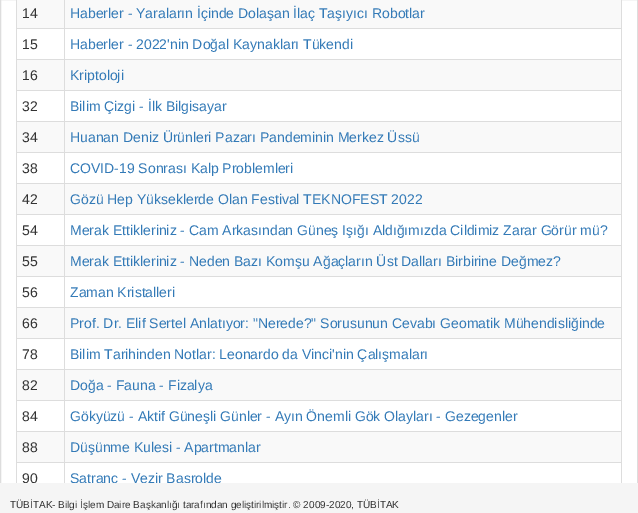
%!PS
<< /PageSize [638 513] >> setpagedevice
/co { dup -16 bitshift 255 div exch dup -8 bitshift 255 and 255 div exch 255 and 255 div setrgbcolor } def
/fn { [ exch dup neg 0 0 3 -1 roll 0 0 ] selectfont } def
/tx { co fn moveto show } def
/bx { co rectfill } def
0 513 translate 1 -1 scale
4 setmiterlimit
0 0 638 513 16#FFFFFF bx
16#DDDDDD co
.5 -.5 637 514 rectstroke
621 0 1 483 16#DDDDDD bx
16 0 1 483 16#DDDDDD bx
17 0 604 28 16#F9F9F9 bx
64 28 558 1 16#DDDDDD bx
64 59 558 1 16#DDDDDD bx
17 60 604 30 16#F9F9F9 bx
64 90 558 1 16#DDDDDD bx
64 121 558 1 16#DDDDDD bx
17 122 604 30 16#F9F9F9 bx
64 152 558 1 16#DDDDDD bx
64 183 558 1 16#DDDDDD bx
17 184 604 30 16#F9F9F9 bx
64 214 558 1 16#DDDDDD bx
64 245 558 1 16#DDDDDD bx
17 246 604 30 16#F9F9F9 bx
64 276 558 1 16#DDDDDD bx
64 307 558 1 16#DDDDDD bx
17 308 604 30 16#F9F9F9 bx
64 338 558 1 16#DDDDDD bx
64 369 558 1 16#DDDDDD bx
17 370 604 30 16#F9F9F9 bx
64 400 558 1 16#DDDDDD bx
64 431 558 1 16#DDDDDD bx
17 432 604 30 16#F9F9F9 bx
64 462 558 1 16#DDDDDD bx
64 462 1 21 16#DDDDDD bx
16 462 49 1 16#DDDDDD bx
64 431 1 32 16#DDDDDD bx
16 431 49 1 16#DDDDDD bx
64 400 1 32 16#DDDDDD bx
16 400 49 1 16#DDDDDD bx
64 369 1 32 16#DDDDDD bx
16 369 49 1 16#DDDDDD bx
64 338 1 32 16#DDDDDD bx
16 338 49 1 16#DDDDDD bx
64 307 1 32 16#DDDDDD bx
16 307 49 1 16#DDDDDD bx
64 276 1 32 16#DDDDDD bx
16 276 49 1 16#DDDDDD bx
64 245 1 32 16#DDDDDD bx
16 245 49 1 16#DDDDDD bx
64 214 1 32 16#DDDDDD bx
16 214 49 1 16#DDDDDD bx
64 183 1 32 16#DDDDDD bx
16 183 49 1 16#DDDDDD bx
64 152 1 32 16#DDDDDD bx
16 152 49 1 16#DDDDDD bx
64 121 1 32 16#DDDDDD bx
16 121 49 1 16#DDDDDD bx
64 90 1 32 16#DDDDDD bx
16 90 49 1 16#DDDDDD bx
64 59 1 32 16#DDDDDD bx
16 59 49 1 16#DDDDDD bx
64 28 1 32 16#DDDDDD bx
16 28 49 1 16#DDDDDD bx
64 0 1 29 16#DDDDDD bx
(14) 22 18 /LiberationSans-Regular 14 16#333333 tx
(Haberler - Yaraların İçinde Dolaşan İlaç Taşıyıcı Robotlar) 70 18 /LiberationSans-Regular 14 16#337AB7 tx
(15) 22 49 /LiberationSans-Regular 14 16#333333 tx
(Haberler - 2022'nin Doğal Kaynakları Tükendi) 70 49 /LiberationSans-Regular 14 16#337AB7 tx
(16) 22 80 /LiberationSans-Regular 14 16#333333 tx
(Kriptoloji) 70 80 /LiberationSans-Regular 14 16#337AB7 tx
(32) 22 111 /LiberationSans-Regular 14 16#333333 tx
(Bilim Çizgi - İlk Bilgisayar) 70 111 /LiberationSans-Regular 14 16#337AB7 tx
(34) 22 142 /LiberationSans-Regular 14 16#333333 tx
(Huanan Deniz Ürünleri Pazarı Pandeminin Merkez Üssü) 70 142 /LiberationSans-Regular 14 16#337AB7 tx
(38) 22 173 /LiberationSans-Regular 14 16#333333 tx
(COVID-19 Sonrası Kalp Problemleri) 70 173 /LiberationSans-Regular 14 16#337AB7 tx
(42) 22 204 /LiberationSans-Regular 14 16#333333 tx
(Gözü Hep Yükseklerde Olan Festival TEKNOFEST 2022) 70 204 /LiberationSans-Regular 14 16#337AB7 tx
(54) 22 235 /LiberationSans-Regular 14 16#333333 tx
(Merak Ettikleriniz - Cam Arkasından Güneş Işığı Aldığımızda Cildimiz Zarar Görür mü?) 70 235 /LiberationSans-Regular 14 16#337AB7 tx
(55) 22 266 /LiberationSans-Regular 14 16#333333 tx
(Merak Ettikleriniz - Neden Bazı Komşu Ağaçların Üst Dalları Birbirine Değmez?) 70 266 /LiberationSans-Regular 14 16#337AB7 tx
(56) 22 297 /LiberationSans-Regular 14 16#333333 tx
(Zaman Kristalleri) 70 297 /LiberationSans-Regular 14 16#337AB7 tx
(66) 22 328 /LiberationSans-Regular 14 16#333333 tx
(Prof. Dr. Elif Sertel Anlatıyor: "Nerede?" Sorusunun Cevabı Geomatik Mühendisliğinde) 70 328 /LiberationSans-Regular 14 16#337AB7 tx
(78) 22 359 /LiberationSans-Regular 14 16#333333 tx
(Bilim Tarihinden Notlar: Leonardo da Vinci'nin Çalışmaları) 70 359 /LiberationSans-Regular 14 16#337AB7 tx
(82) 22 390 /LiberationSans-Regular 14 16#333333 tx
(Doğa - Fauna - Fizalya) 70 390 /LiberationSans-Regular 14 16#337AB7 tx
(84) 22 421 /LiberationSans-Regular 14 16#333333 tx
(Gökyüzü - Aktif Güneşli Günler - Ayın Önemli Gök Olayları - Gezegenler) 70 421 /LiberationSans-Regular 14 16#337AB7 tx
(88) 22 452 /LiberationSans-Regular 14 16#333333 tx
(Düşünme Kulesi - Apartmanlar) 70 452 /LiberationSans-Regular 14 16#337AB7 tx
(90) 22 483 /LiberationSans-Regular 14 16#333333 tx
(Satranç - Vezir Başrolde) 70 483 /LiberationSans-Regular 14 16#337AB7 tx
0 483 638 30 16#F5F5F5 bx
(TÜBİTAK- Bilgi İşlem Daire Başkanlığı tarafından geliştirilmiştir. © 2009-2020, TÜBİTAK) 10 508 /LiberationSans-Regular 10 16#333333 tx
showpage
